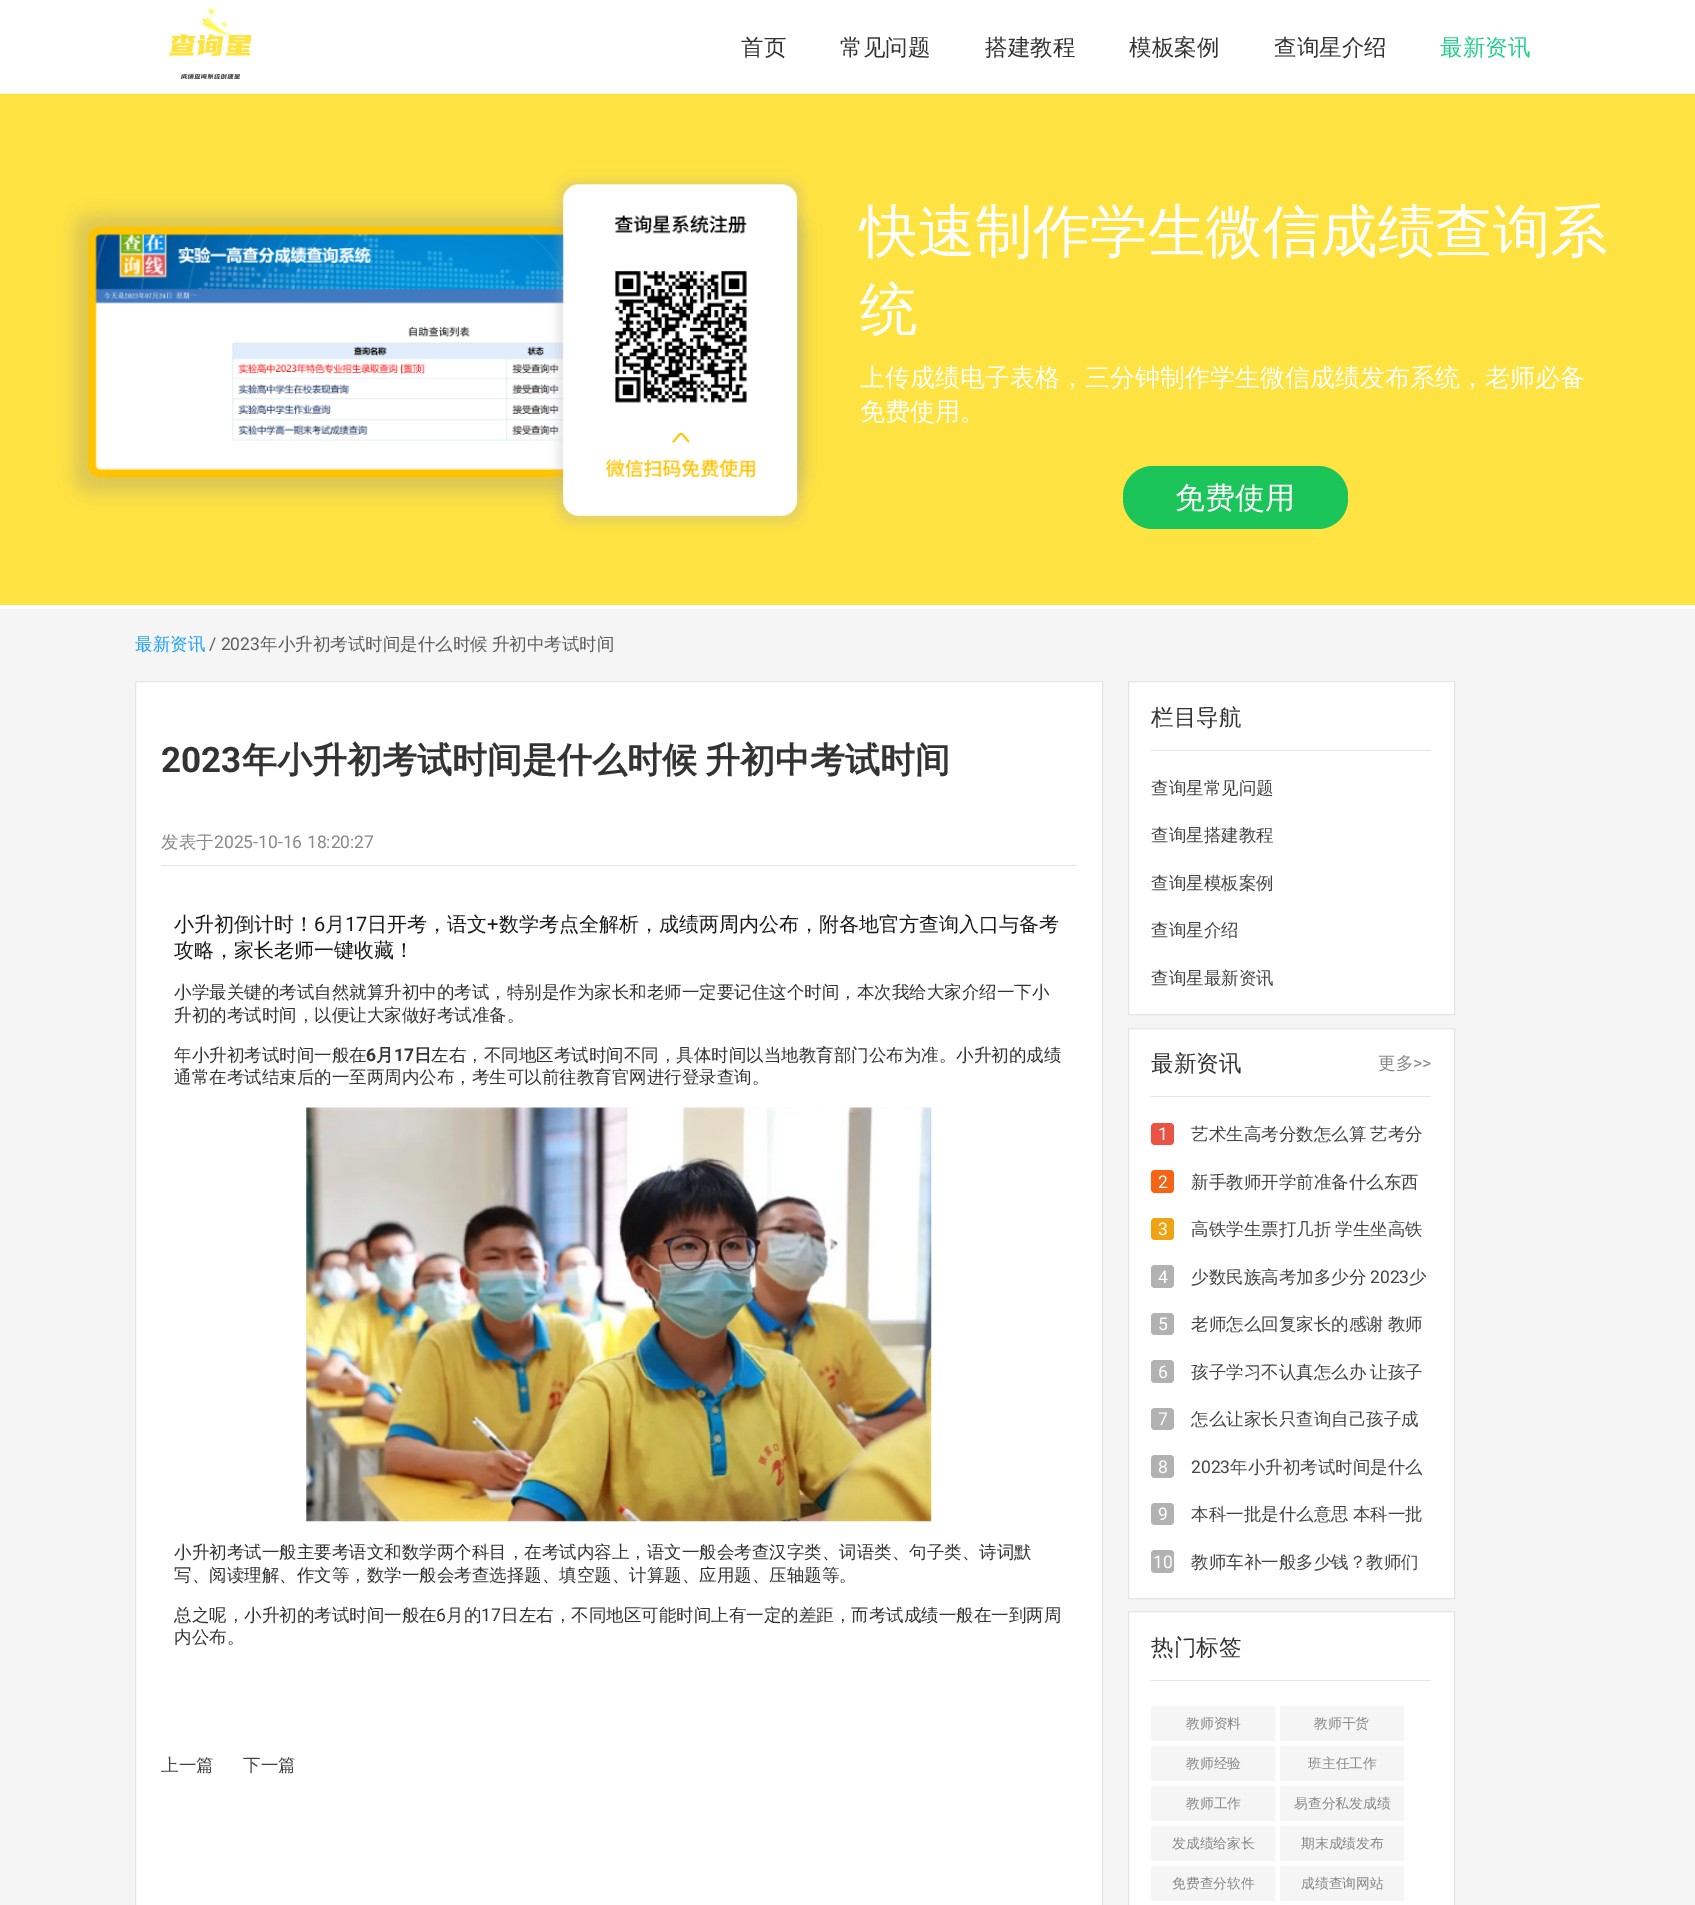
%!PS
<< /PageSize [1695 1905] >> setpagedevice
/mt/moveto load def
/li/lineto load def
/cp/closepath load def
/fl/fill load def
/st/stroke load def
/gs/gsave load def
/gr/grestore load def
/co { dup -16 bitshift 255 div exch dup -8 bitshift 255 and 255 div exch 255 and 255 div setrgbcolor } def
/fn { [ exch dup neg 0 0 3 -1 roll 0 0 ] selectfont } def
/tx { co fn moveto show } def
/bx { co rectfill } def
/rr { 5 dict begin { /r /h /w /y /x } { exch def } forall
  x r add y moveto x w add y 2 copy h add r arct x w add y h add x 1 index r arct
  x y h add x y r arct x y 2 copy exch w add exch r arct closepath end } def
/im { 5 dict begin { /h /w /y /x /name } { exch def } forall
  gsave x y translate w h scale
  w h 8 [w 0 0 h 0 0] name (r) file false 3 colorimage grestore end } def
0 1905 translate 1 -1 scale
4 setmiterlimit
0 0 1695 1905 16#FFFFFF bx
(media/1.raw) 169 6 83 73 im
(media/2.raw) 0 93 1695 512 im
16#1CC559 co
1123 466 225 63 30 rr fl
0 609 1695 1296 16#F5F5F5 bx
16#FFFFFF co
135.5 681.5 mt 1102.5 681.5 li 1102.5 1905.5 li 135.5 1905.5 li cp gs fl gr
16#E5E5E5 co
st
161 865 915 1 16#E5E5E5 bx
(media/3.raw) 306 1107 626 415 im
16#FFFFFF co
1128.5 681.5 mt 1454.5 681.5 li 1454.5 1014.5 li 1128.5 1014.5 li cp gs fl gr
16#E5E5E5 co
st
1151 750 280 1 16#E5E5E5 bx
16#FFFFFF co
1128.5 1028.5 mt 1454.5 1028.5 li 1454.5 1598.5 li 1128.5 1598.5 li cp gs fl gr
16#E5E5E5 co
st
1151 1096 280 1 16#E5E5E5 bx
16#EA5246 co
1151 1123 23 22 4 rr fl
16#F56313 co
1151 1170 23 23 4 rr fl
16#EEA313 co
1151 1218 23 22 4 rr fl
16#B2B2B2 co
1151 1265 23 23 4 rr fl
1151 1313 23 22 4 rr fl
1151 1360 23 23 4 rr fl
1151 1408 23 22 4 rr fl
1151 1455 23 23 4 rr fl
1151 1503 23 22 4 rr fl
1151 1550 23 23 4 rr fl
16#FFFFFF co
1128.5 1611.5 mt 1454.5 1611.5 li 1454.5 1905.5 li 1128.5 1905.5 li cp gs fl gr
16#E5E5E5 co
st
1151 1680 280 1 16#E5E5E5 bx
16#F5F5F5 co
1151 1706 124 35 2.5 rr fl
1280 1706 124 35 2.5 rr fl
1151 1746 124 35 2.5 rr fl
1280 1746 124 35 2.5 rr fl
1151 1786 124 35 2.5 rr fl
1280 1786 124 35 2.5 rr fl
1151 1826 124 35 2.5 rr fl
1280 1826 124 35 2.5 rr fl
1151 1866 124 35 2.5 rr fl
1280 1866 124 35 2.5 rr fl
(首页) 741 55 /WenQuanYiZenHei-Medium 22.5 16#333333 tx
(常见问题) 840 55 /WenQuanYiZenHei-Medium 22.5 16#333333 tx
(搭建教程) 985 55 /WenQuanYiZenHei-Medium 22.5 16#333333 tx
(模板案例) 1129 55 /WenQuanYiZenHei-Medium 22.5 16#333333 tx
(查询星介绍) 1274 55 /WenQuanYiZenHei-Medium 22.5 16#333333 tx
(最新资讯) 1440 55 /WenQuanYiZenHei-Medium 22.5 16#1FD087 tx
(快速制作学生微信成绩查询系) 860 251 /WenQuanYiZenHei-Medium 57.5 16#FFFFFF tx
(统) 860 329 /WenQuanYiZenHei-Medium 57.5 16#FFFFFF tx
(上传成绩电子表格，三分钟制作学生微信成绩发布系统，老师必备) 860 386 /WenQuanYiZenHei-Medium 25 16#FFFFFF tx
(免费使用。) 860 420 /WenQuanYiZenHei-Medium 25 16#FFFFFF tx
(免费使用) 1175 508 /WenQuanYiZenHei-Medium 30 16#FFFFFF tx
(最新资讯) 135 650 /WenQuanYiZenHei-Medium 17.5 16#1E9FFF tx
(/ 2023) 209 650 /Roboto-Regular 17.5 16#5D5D5D tx
/WenQuanYiZenHei-Medium 17.5 fn
260 650 mt -1 0 32 (年小升初考试时间是什么时候 升初中考试时间) widthshow
(2023) 161 772 /Roboto-Bold 35 16#333333 tx
/WenQuanYiZenHei-Bold 35 fn
242 772 mt -2 0 32 (年小升初考试时间是什么时候 升初中考试时间) widthshow
(发表于) 161 848 /WenQuanYiZenHei-Medium 17.5 16#888888 tx
(2025-10-16 18:20:27) 214 848 /Roboto-Regular 17.5 16#888888 tx
(小升初倒计时！) 174 931 /WenQuanYiZenHei-Medium 20 16#1A1A1A tx
(6) 314 931 /Roboto-Regular 20 16#1A1A1A tx
(月) 325 931 /WenQuanYiZenHei-Medium 20 16#1A1A1A tx
(17) 345 931 /Roboto-Regular 20 16#1A1A1A tx
(日开考，语文) 367 931 /WenQuanYiZenHei-Medium 20 16#1A1A1A tx
(+) 487 931 /Roboto-Regular 20 16#1A1A1A tx
(数学考点全解析，成绩两周内公布，附各地官方查询入口与备考) 499 931 /WenQuanYiZenHei-Medium 20 16#1A1A1A tx
(攻略，家长老师一键收藏！) 174 957 /WenQuanYiZenHei-Medium 20 16#1A1A1A tx
(小学最关键的考试自然就算升初中的考试，特别是作为家长和老师一定要记住这个时间，本次我给大家介绍一下小) 174 998 /WenQuanYiZenHei-Medium 17.5 16#333333 tx
(升初的考试时间，以便让大家做好考试准备。) 174 1021 /WenQuanYiZenHei-Medium 17.5 16#333333 tx
(年小升初考试时间一般在) 174 1061 /WenQuanYiZenHei-Medium 17.5 16#333333 tx
(6) 366 1061 /Roboto-Bold 17.5 16#333333 tx
(月) 376 1061 /WenQuanYiZenHei-Bold 17.5 16#333333 tx
(17) 394 1061 /Roboto-Bold 17.5 16#333333 tx
(日) 414 1061 /WenQuanYiZenHei-Bold 17.5 16#333333 tx
(左右，不同地区考试时间不同，具体时间以当地教育部门公布为准。小升初的成绩) 431 1061 /WenQuanYiZenHei-Medium 17.5 16#333333 tx
(通常在考试结束后的一至两周内公布，考生可以前往教育官网进行登录查询。) 174 1083 /WenQuanYiZenHei-Medium 17.5 16#333333 tx
(小升初考试一般主要考语文和数学两个科目，在考试内容上，语文一般会考查汉字类、词语类、句子类、诗词默) 174 1558 /WenQuanYiZenHei-Medium 17.5 16#333333 tx
(写、阅读理解、作文等，数学一般会考查选择题、填空题、计算题、应用题、压轴题等。) 174 1581 /WenQuanYiZenHei-Medium 17.5 16#333333 tx
(总之呢，小升初的考试时间一般在) 174 1621 /WenQuanYiZenHei-Medium 17.5 16#333333 tx
(6) 436 1621 /Roboto-Regular 17.5 16#333333 tx
(月的) 446 1621 /WenQuanYiZenHei-Medium 17.5 16#333333 tx
(17) 481 1621 /Roboto-Regular 17.5 16#333333 tx
(日左右，不同地区可能时间上有一定的差距，而考试成绩一般在一到两周) 501 1621 /WenQuanYiZenHei-Medium 17.5 16#333333 tx
(内公布。) 174 1643 /WenQuanYiZenHei-Medium 17.5 16#333333 tx
(上一篇) 161 1771 /WenQuanYiZenHei-Medium 17.5 16#444444 tx
(下一篇) 243 1771 /WenQuanYiZenHei-Medium 17.5 16#444444 tx
(栏目导航) 1151 725 /WenQuanYiZenHei-Medium 22.5 16#333333 tx
(查询星常见问题) 1151 794 /WenQuanYiZenHei-Medium 17.5 16#444444 tx
(查询星搭建教程) 1151 841 /WenQuanYiZenHei-Medium 17.5 16#444444 tx
(查询星模板案例) 1151 889 /WenQuanYiZenHei-Medium 17.5 16#444444 tx
(查询星介绍) 1151 936 /WenQuanYiZenHei-Medium 17.5 16#444444 tx
(查询星最新资讯) 1151 984 /WenQuanYiZenHei-Medium 17.5 16#444444 tx
(最新资讯) 1151 1071 /WenQuanYiZenHei-Medium 22.5 16#333333 tx
(更多) 1378 1069 /WenQuanYiZenHei-Medium 17.5 16#888888 tx
(>>) 1413 1069 /Roboto-Regular 17.5 16#888888 tx
(1) 1158 1140 /Roboto-Regular 17.5 16#FFFFFF tx
/WenQuanYiZenHei-Medium 17.5 fn
16#444444 co
1191 1140 mt -1 0 32 (艺术生高考分数怎么算 艺考分) widthshow
(2) 1158 1188 /Roboto-Regular 17.5 16#FFFFFF tx
(新手教师开学前准备什么东西) 1191 1188 /WenQuanYiZenHei-Medium 17.5 16#444444 tx
(3) 1158 1235 /Roboto-Regular 17.5 16#FFFFFF tx
/WenQuanYiZenHei-Medium 17.5 fn
16#444444 co
1191 1235 mt -1 0 32 (高铁学生票打几折 学生坐高铁) widthshow
(4) 1158 1283 /Roboto-Regular 17.5 16#FFFFFF tx
(少数民族高考加多少分) 1191 1283 /WenQuanYiZenHei-Medium 17.5 16#444444 tx
(2023) 1370 1283 /Roboto-Regular 17.5 16#444444 tx
(少) 1409 1283 /WenQuanYiZenHei-Medium 17.5 16#444444 tx
(5) 1158 1330 /Roboto-Regular 17.5 16#FFFFFF tx
/WenQuanYiZenHei-Medium 17.5 fn
16#444444 co
1191 1330 mt -1 0 32 (老师怎么回复家长的感谢 教师) widthshow
(6) 1158 1378 /Roboto-Regular 17.5 16#FFFFFF tx
/WenQuanYiZenHei-Medium 17.5 fn
16#444444 co
1191 1378 mt -1 0 32 (孩子学习不认真怎么办 让孩子) widthshow
(7) 1158 1425 /Roboto-Regular 17.5 16#FFFFFF tx
(怎么让家长只查询自己孩子成) 1191 1425 /WenQuanYiZenHei-Medium 17.5 16#444444 tx
(8) 1158 1473 /Roboto-Regular 17.5 16#FFFFFF tx
(2023) 1191 1473 /Roboto-Regular 17.5 16#444444 tx
(年小升初考试时间是什么) 1230 1473 /WenQuanYiZenHei-Medium 17.5 16#444444 tx
(9) 1158 1520 /Roboto-Regular 17.5 16#FFFFFF tx
/WenQuanYiZenHei-Medium 17.5 fn
16#444444 co
1191 1520 mt -1 0 32 (本科一批是什么意思 本科一批) widthshow
(10) 1153 1568 /Roboto-Regular 17.5 16#FFFFFF tx
(教师车补一般多少钱？教师们) 1191 1568 /WenQuanYiZenHei-Medium 17.5 16#444444 tx
(热门标签) 1151 1655 /WenQuanYiZenHei-Medium 22.5 16#333333 tx
(教师资料) 1186 1728 /WenQuanYiZenHei-Medium 13.75 16#888888 tx
(教师干货) 1314 1728 /WenQuanYiZenHei-Medium 13.75 16#888888 tx
(教师经验) 1186 1768 /WenQuanYiZenHei-Medium 13.75 16#888888 tx
(班主任工作) 1308 1768 /WenQuanYiZenHei-Medium 13.75 16#888888 tx
(教师工作) 1186 1808 /WenQuanYiZenHei-Medium 13.75 16#888888 tx
(易查分私发成绩) 1294 1808 /WenQuanYiZenHei-Medium 13.75 16#888888 tx
(发成绩给家长) 1172 1848 /WenQuanYiZenHei-Medium 13.75 16#888888 tx
(期末成绩发布) 1301 1848 /WenQuanYiZenHei-Medium 13.75 16#888888 tx
(免费查分软件) 1172 1888 /WenQuanYiZenHei-Medium 13.75 16#888888 tx
(成绩查询网站) 1301 1888 /WenQuanYiZenHei-Medium 13.75 16#888888 tx
showpage
